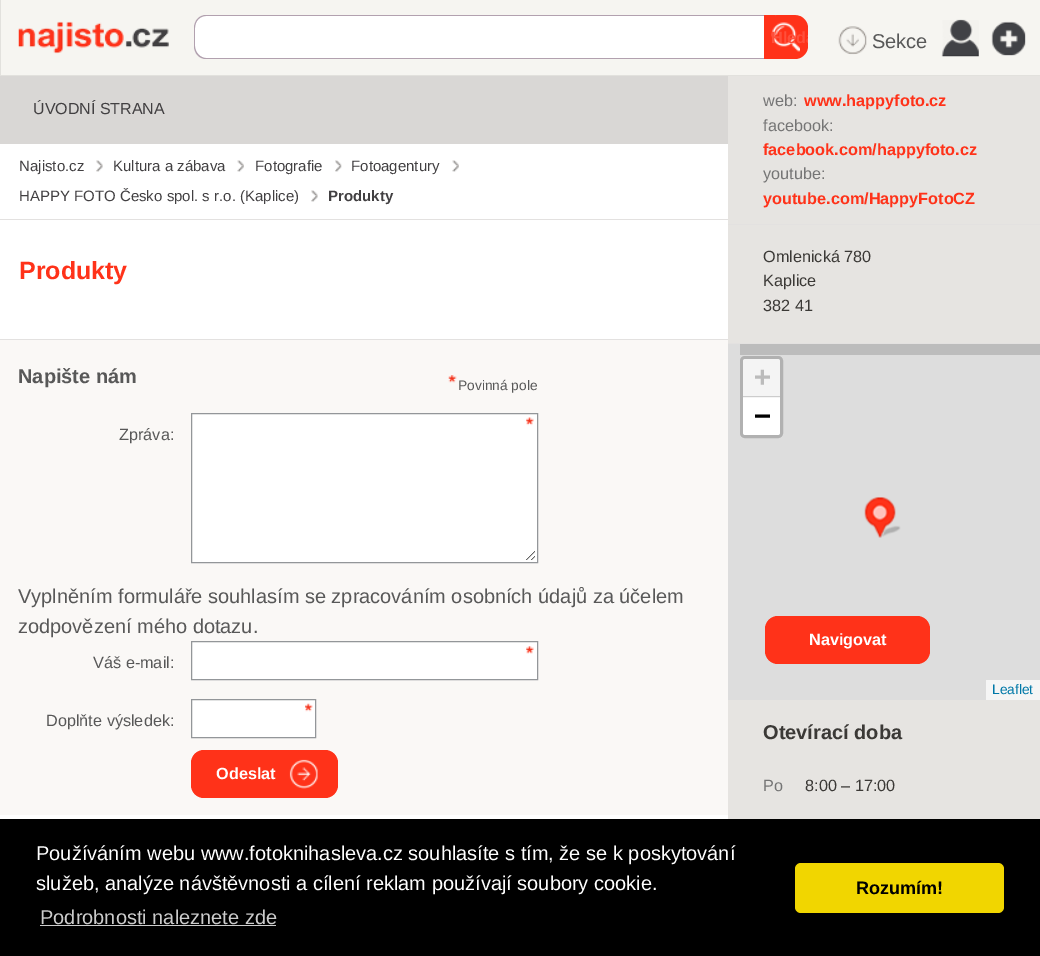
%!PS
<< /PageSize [1040 956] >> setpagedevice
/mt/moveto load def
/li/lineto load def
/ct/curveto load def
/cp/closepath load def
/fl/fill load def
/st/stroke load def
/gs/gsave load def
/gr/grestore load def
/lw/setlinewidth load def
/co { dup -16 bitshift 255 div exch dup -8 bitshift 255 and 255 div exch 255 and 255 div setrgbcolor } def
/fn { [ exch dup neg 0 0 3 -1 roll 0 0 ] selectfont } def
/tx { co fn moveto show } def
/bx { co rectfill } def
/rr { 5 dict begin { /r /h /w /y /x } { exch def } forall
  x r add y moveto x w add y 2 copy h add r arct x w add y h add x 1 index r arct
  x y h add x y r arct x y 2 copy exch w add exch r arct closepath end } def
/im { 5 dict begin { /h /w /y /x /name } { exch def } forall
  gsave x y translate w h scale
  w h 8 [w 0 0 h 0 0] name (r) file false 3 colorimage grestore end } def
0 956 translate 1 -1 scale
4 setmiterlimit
0 0 1040 956 16#FFFFFF bx
1 0 1039 75 16#F6F5F1 bx
0 75 1040 1 16#E2E1DD bx
0 0 1 76 16#E2E1DD bx
(media/1.raw) 18 21 151 33 im
16#FFFFFF co
207 15 mt 764 15 li 764 59 li 207 59 li 200 59 194 53 194 46 ct 194 28 li 194 21 200 15 207 15 ct cp fl
16#B2A1AF co
206 15 mt 764 15 li 764 59 li 206 59 li 199 59 194 53 194 46 ct 194 28 li 194 21 199 15 206 15 ct cp 206 16 mt 764 16 li 764 58 li 206 58 li 200 58 195 52 195 46 ct 195 28 li 195 21 200 16 206 16 ct cp eofill
16#FF3219 co
764 15 mt 795 15 li 802 15 808 21 808 28 ct 808 46 li 808 53 802 59 795 59 ct 764 59 li cp fl
(media/2.raw) 771 15 29 37 im
(media/3.raw) 838 26 29 29 im
(media/4.raw) 941 19 38 38 im
(media/5.raw) 991 21 35 35 im
0 76 728 68 16#D9D7D5 bx
0 219 728 1 16#E3E1E0 bx
(media/6.raw) 96 160 7 12 im
(media/7.raw) 237 160 7 12 im
(media/8.raw) 335 160 7 12 im
(media/7.raw) 452 160 7 12 im
(media/9.raw) 311 190 7 12 im
0 340 728 475 16#FAF8F6 bx
0 339 728 1 16#E3E1E0 bx
(media/10.raw) 448 375 9 8 im
192 414 345 148 16#FFFFFF bx
(media/11.raw) 526 417 9 143 im
16#939699 co
191.5 413.5 346 149 rectstroke
192 642 345 37 16#FFFFFF bx
(media/12.raw) 526 646 8 8 im
16#939699 co
191.5 641.5 346 38 rectstroke
192 700 123 37 16#FFFFFF bx
(media/13.raw) 305 703 8 9 im
16#939699 co
191.5 699.5 124 38 rectstroke
16#FF3219 co
191 750 147 48 13 rr fl
(media/14.raw) 289 759 29 30 im
728 76 312 148 16#E6E4E1 bx
728 225 312 118 16#E6E4E1 bx
728 224 312 1 16#E3E1E0 bx
728 343 312 1 16#E3E1E0 bx
728 344 312 356 16#DDDDDD bx
740 344 300 11 16#BCBCBC bx
16#B1B1B1 co
3 lw
741.5 357.5 40 79 3.5 rr st
16#F4F4F4 co
745.5 359 mt 777.5 359 li 779 359 780 360 780 361.5 ct 780 398 li 743 398 li 743 361.5 li 743 360 744 359 745.5 359 ct cp fl
743 396 37 1 16#CCCCCC bx
16#FFFFFF co
743 398 mt 780 398 li 780 432.5 li 780 434 779 435 777.5 435 ct 745.5 435 li 744 435 743 434 743 432.5 ct cp fl
986 680 54 20 16#F5F5F5 bx
(media/15.raw) 864 497 37 41 im
16#FF3219 co
765 616 165 48 13 rr fl
728 700 312 119 16#E6E4E1 bx
0 819 1040 137 16#000000 bx
40 925 236 1 16#CCCCCC bx
16#F1D600 co
795 863 209 50 6 rr fl
gs
764 15 mt 795 15 li 802 15 808 21 808 28 ct 808 46 li 808 53 802 59 795 59 ct 764 59 li cp clip newpath
(Hleda) 771 43 /LiberationSans-Bold 16.25 16#FF503B tx
gr
(Sekce) 872 48 /LiberationSans-Regular 20 16#585858 tx
(ÚVODNÍ STRANA) 33 114 /LiberationSans-Regular 16 16#424042 tx
(Najisto.cz) 19 171 /LiberationSans-Regular 15 16#424042 tx
(Kultura a zábava) 113 171 /LiberationSans-Regular 15 16#424042 tx
(Fotografie) 255 171 /LiberationSans-Regular 15 16#424042 tx
(Fotoagentury) 351 171 /LiberationSans-Regular 15 16#424042 tx
(HAPPY FOTO Česko spol. s r.o. \(Kaplice\)) 19 201 /LiberationSans-Regular 15 16#424042 tx
(Produkty) 328 201 /LiberationSans-Bold 15 16#424042 tx
(Produkty) 19 279 /LiberationSans-Bold 25 16#FF3219 tx
(Napište nám) 18 383 /LiberationSans-Bold 20 16#585858 tx
(Povinná pole) 458 390 /LiberationSans-Regular 13.75 16#585858 tx
(Zpráva:) 119 440 /LiberationSans-Regular 16.25 16#585858 tx
(Vyplněním formuláře souhlasím se zpracováním osobních údajů za účelem) 18 603 /LiberationSans-Regular 20 16#585858 tx
(zodpovězení mého dotazu.) 18 633 /LiberationSans-Regular 20 16#585858 tx
(Váš e-mail:) 93 668 /LiberationSans-Regular 16.25 16#585858 tx
(Doplňte výsledek:) 46 726 /LiberationSans-Regular 16.25 16#585858 tx
(Odeslat) 216 779 /LiberationSans-Bold 16.25 16#FFFFFF tx
(web:) 763 106 /LiberationSans-Regular 16.25 16#757575 tx
(www.happyfoto.cz) 804 106 /LiberationSans-Bold 16.25 16#FF3219 tx
(facebook:) 763 131 /LiberationSans-Regular 16.25 16#757575 tx
(facebook.com/happyfoto.cz) 763 155 /LiberationSans-Bold 16.25 16#FF3219 tx
(youtube:) 763 179 /LiberationSans-Regular 16.25 16#757575 tx
(youtube.com/HappyFotoCZ) 763 204 /LiberationSans-Bold 16.25 16#FF3219 tx
(Omlenická 780) 763 262 /LiberationSans-Regular 16.25 16#3B3936 tx
(Kaplice) 763 286 /LiberationSans-Regular 16.25 16#3B3936 tx
(382 41) 763 311 /LiberationSans-Regular 16.25 16#3B3936 tx
(+) 754 386 /DejaVuSansMono-Bold 28 16#BBBBBB tx
(−) 754 425 /DejaVuSansMono-Bold 28 16#000000 tx
(Leaflet) 992 694 /LiberationSans-Regular 13.75 16#0078A8 tx
(Navigovat) 809 645 /LiberationSans-Bold 16.25 16#FFFFFF tx
(Otevírací doba) 763 739 /LiberationSans-Bold 20 16#3B3936 tx
(Po) 763 791 /LiberationSans-Regular 16.25 16#757575 tx
(8:00 – 17:00) 805 791 /LiberationSans-Regular 16.25 16#3B3936 tx
(Používáním webu www.fotoknihasleva.cz souhlasíte s tím, že se k poskytování) 36 860 /LiberationSans-Regular 20 16#FFFFFF tx
(služeb, analýze návštěvnosti a cílení reklam používají soubory cookie.) 36 890 /LiberationSans-Regular 20 16#FFFFFF tx
(Podrobnosti naleznete zde) 40 924 /LiberationSans-Regular 20 16#CCCCCC tx
(Rozumím!) 856 894 /LiberationSans-Bold 18 16#000000 tx
showpage
